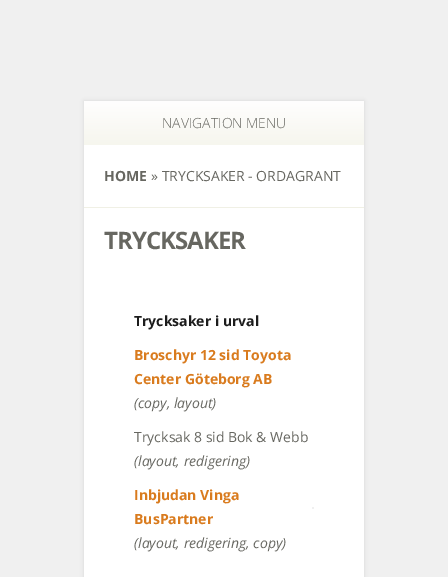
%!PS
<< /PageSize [448 577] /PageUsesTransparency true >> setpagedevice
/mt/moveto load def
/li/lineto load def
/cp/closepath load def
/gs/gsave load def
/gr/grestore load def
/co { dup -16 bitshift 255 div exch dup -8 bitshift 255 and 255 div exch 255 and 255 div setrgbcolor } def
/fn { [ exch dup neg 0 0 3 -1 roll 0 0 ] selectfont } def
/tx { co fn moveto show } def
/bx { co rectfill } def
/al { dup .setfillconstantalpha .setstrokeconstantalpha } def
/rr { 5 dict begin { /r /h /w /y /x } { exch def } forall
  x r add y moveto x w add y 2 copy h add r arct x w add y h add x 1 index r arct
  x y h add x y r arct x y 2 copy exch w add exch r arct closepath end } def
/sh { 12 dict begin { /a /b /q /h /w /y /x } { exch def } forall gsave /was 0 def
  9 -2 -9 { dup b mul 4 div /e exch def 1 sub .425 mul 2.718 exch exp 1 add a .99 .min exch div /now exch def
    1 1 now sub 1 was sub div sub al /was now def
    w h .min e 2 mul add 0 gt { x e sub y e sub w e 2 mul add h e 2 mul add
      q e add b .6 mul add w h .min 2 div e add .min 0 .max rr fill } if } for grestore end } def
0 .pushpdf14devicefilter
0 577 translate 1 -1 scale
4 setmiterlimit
0 0 448 577 16#F0F0F0 bx
16#000000 co
84 101 280 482 0 2 .1 sh
84 145 280 432 16#FFFFFF bx
gs 84 101 mt 364 101 li 364 145 li 84 145 li cp clip newpath
<< /ShadingType 2 /ColorSpace /DeviceRGB /Coords [224 101 224 145] /Extend [true true] /Function << /FunctionType 2 /Domain [0 1] /C0 [1 .996 .996] /C1 [.965 .965 .933] /N 1 >> >> shfill gr
84 207 280 1 16#F0F0E5 bx
312 507 2 2 16#F0F0F0 bx
(NAVIGATION MENU) 162 128 /OpenSans-Light 14 16#676761 tx
(HOME) 104 181 /OpenSans-Bold 14 16#676761 tx
(» TRYCKSAKER - ORDAGRANT) 151 181 /OpenSans-Regular 14 16#676761 tx
/OpenSans-Bold 24 fn
104 249 mt -1 0 (TRYCKSAKER) ashow
(Trycksaker i urval) 134 326 /OpenSans-Bold 14 16#1C1C1C tx
(Broschyr 12 sid Toyota) 134 360 /OpenSans-Bold 14 16#D97B1E tx
(Center Göteborg AB) 134 384 /OpenSans-Bold 14 16#D97B1E tx
(\(copy, layout\)) 134 408 /OpenSans-Italic 14 16#676761 tx
(Trycksak 8 sid Bok & Webb) 134 442 /OpenSans-Regular 14 16#676761 tx
(\(layout, redigering\)) 134 466 /OpenSans-Italic 14 16#676761 tx
(Inbjudan Vinga) 134 500 /OpenSans-Bold 14 16#D97B1E tx
(BusPartner) 134 524 /OpenSans-Bold 14 16#D97B1E tx
(\(layout, redigering, copy\)) 134 548 /OpenSans-Italic 14 16#676761 tx
.poppdf14devicefilter showpage
